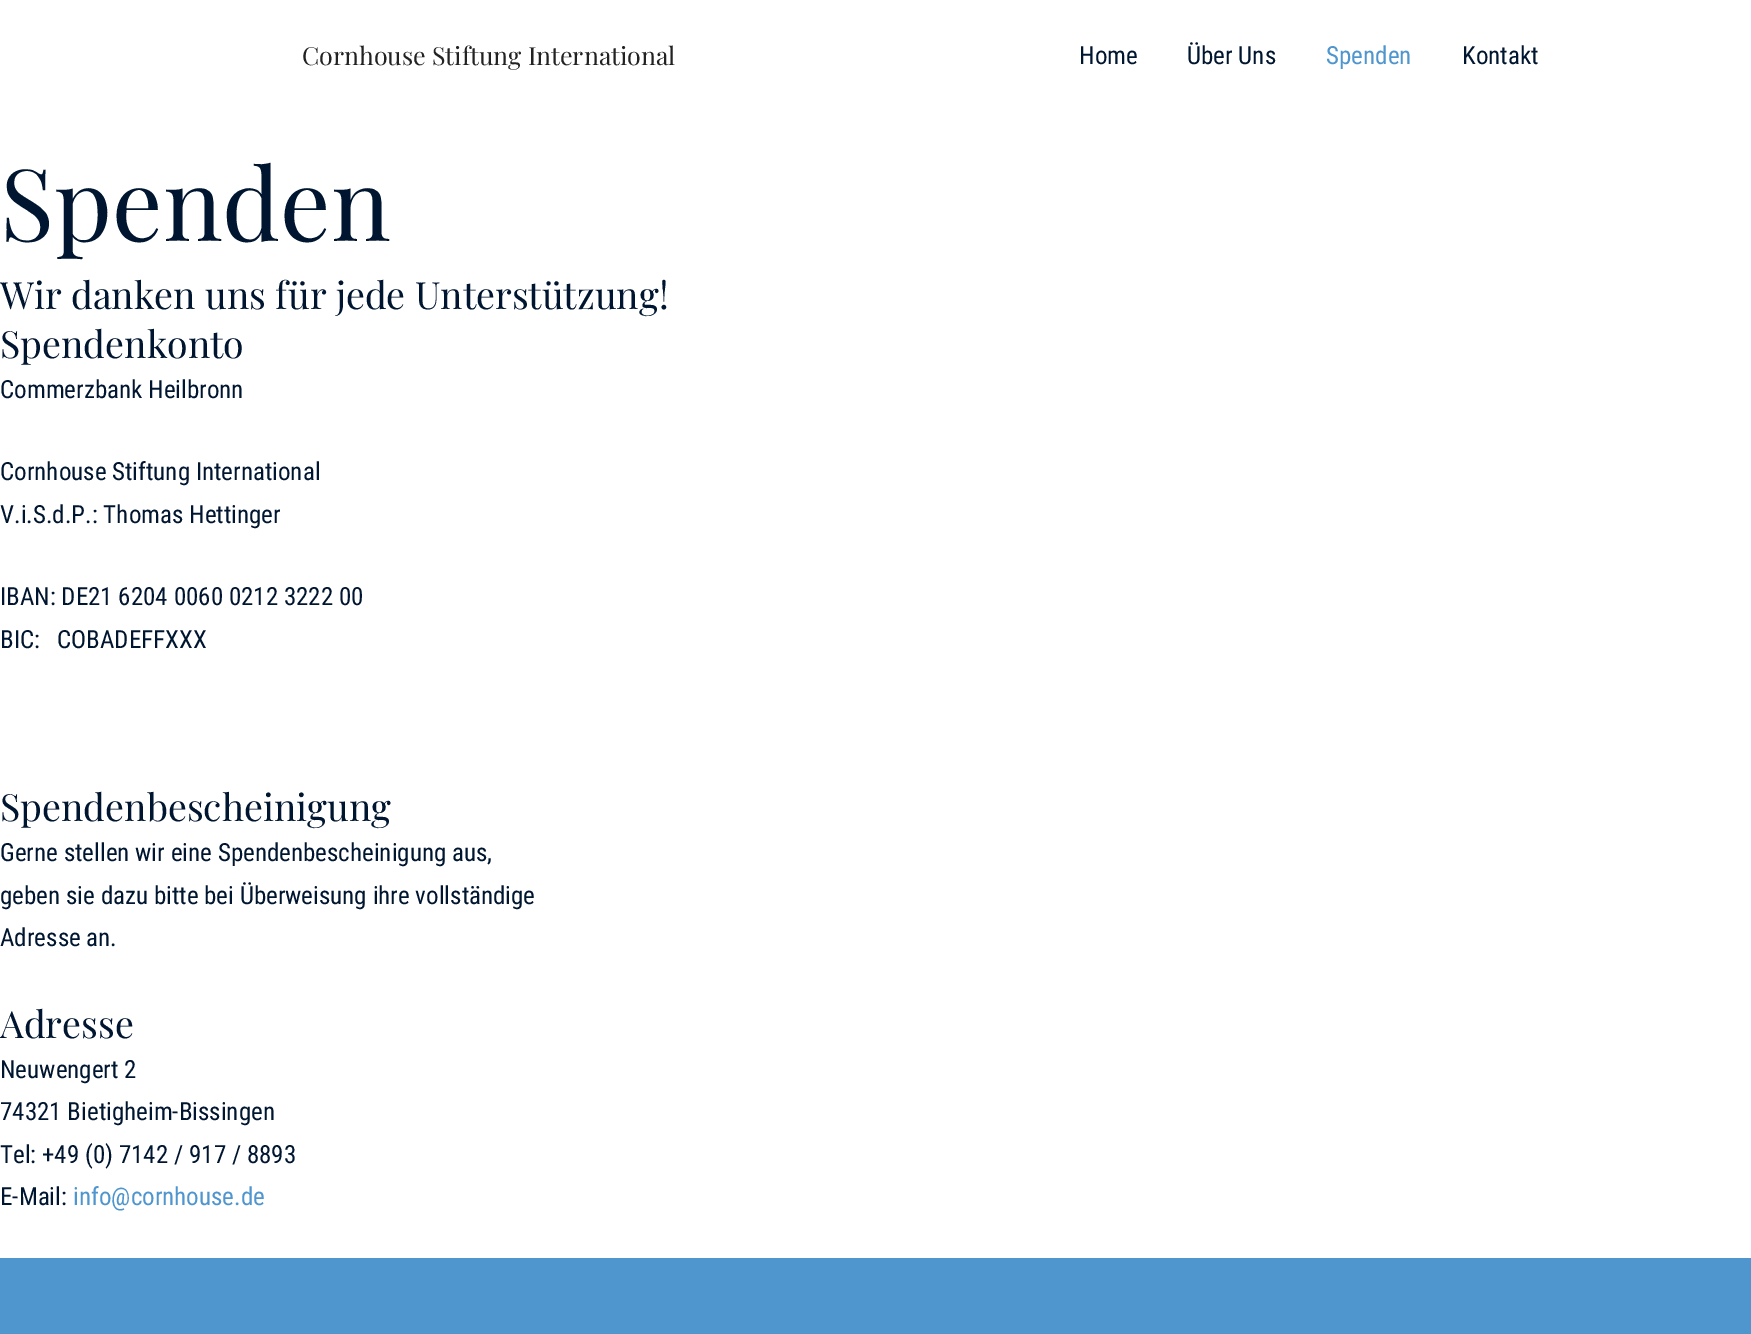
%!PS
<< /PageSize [1751 1334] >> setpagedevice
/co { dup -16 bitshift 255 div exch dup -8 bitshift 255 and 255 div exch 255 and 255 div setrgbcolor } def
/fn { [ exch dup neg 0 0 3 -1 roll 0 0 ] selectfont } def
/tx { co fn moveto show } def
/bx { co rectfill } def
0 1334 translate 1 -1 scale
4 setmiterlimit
0 0 1751 1334 16#FFFFFF bx
0 1258 1751 76 16#4F96CE bx
(Cornhouse Stiftung International) 302 65 /PlayfairDisplay-Regular 25 16#222222 tx
(Home) 1079 64 /RobotoCondensed-Regular 25 16#001530 tx
(Über Uns) 1187 64 /RobotoCondensed-Regular 25 16#001530 tx
(Spenden) 1326 64 /RobotoCondensed-Regular 25 16#4F96CE tx
(Kontakt) 1462 64 /RobotoCondensed-Regular 25 16#001530 tx
(Spenden) 0 241 /PlayfairDisplay-Regular 100 16#001530 tx
(Wir danken uns für jede Unterstützung!) 0 309 /PlayfairDisplay-Regular 37.5 16#001530 tx
(Spendenkonto) 0 358 /PlayfairDisplay-Regular 37.5 16#001530 tx
(Commerzbank Heilbronn) 0 398 /RobotoCondensed-Regular 25 16#001530 tx
(Cornhouse Stiftung International) 0 480 /RobotoCondensed-Regular 25 16#001530 tx
(V.i.S.d.P.: Thomas Hettinger) 0 523 /RobotoCondensed-Regular 25 16#001530 tx
(IBAN: DE21 6204 0060 0212 3222 00) 0 605 /RobotoCondensed-Regular 25 16#001530 tx
(BIC:   COBADEFFXXX) 0 648 /RobotoCondensed-Regular 25 16#001530 tx
(Spendenbescheinigung) 0 821 /PlayfairDisplay-Regular 37.5 16#001530 tx
(Gerne stellen wir eine Spendenbescheinigung aus,) 0 861 /RobotoCondensed-Regular 25 16#001530 tx
(geben sie dazu bitte bei Überweisung ihre vollständige) 0 904 /RobotoCondensed-Regular 25 16#001530 tx
(Adresse an.) 0 946 /RobotoCondensed-Regular 25 16#001530 tx
(Adresse) 0 1038 /PlayfairDisplay-Regular 37.5 16#001530 tx
(Neuwengert 2) 0 1078 /RobotoCondensed-Regular 25 16#001530 tx
(74321 Bietigheim-Bissingen) 0 1120 /RobotoCondensed-Regular 25 16#001530 tx
(Tel: +49 \(0\) 7142 / 917 / 8893) 0 1163 /RobotoCondensed-Regular 25 16#001530 tx
(E-Mail:) 0 1205 /RobotoCondensed-Regular 25 16#001530 tx
(info@cornhouse.de) 73 1205 /RobotoCondensed-Regular 25 16#4F96CE tx
showpage
